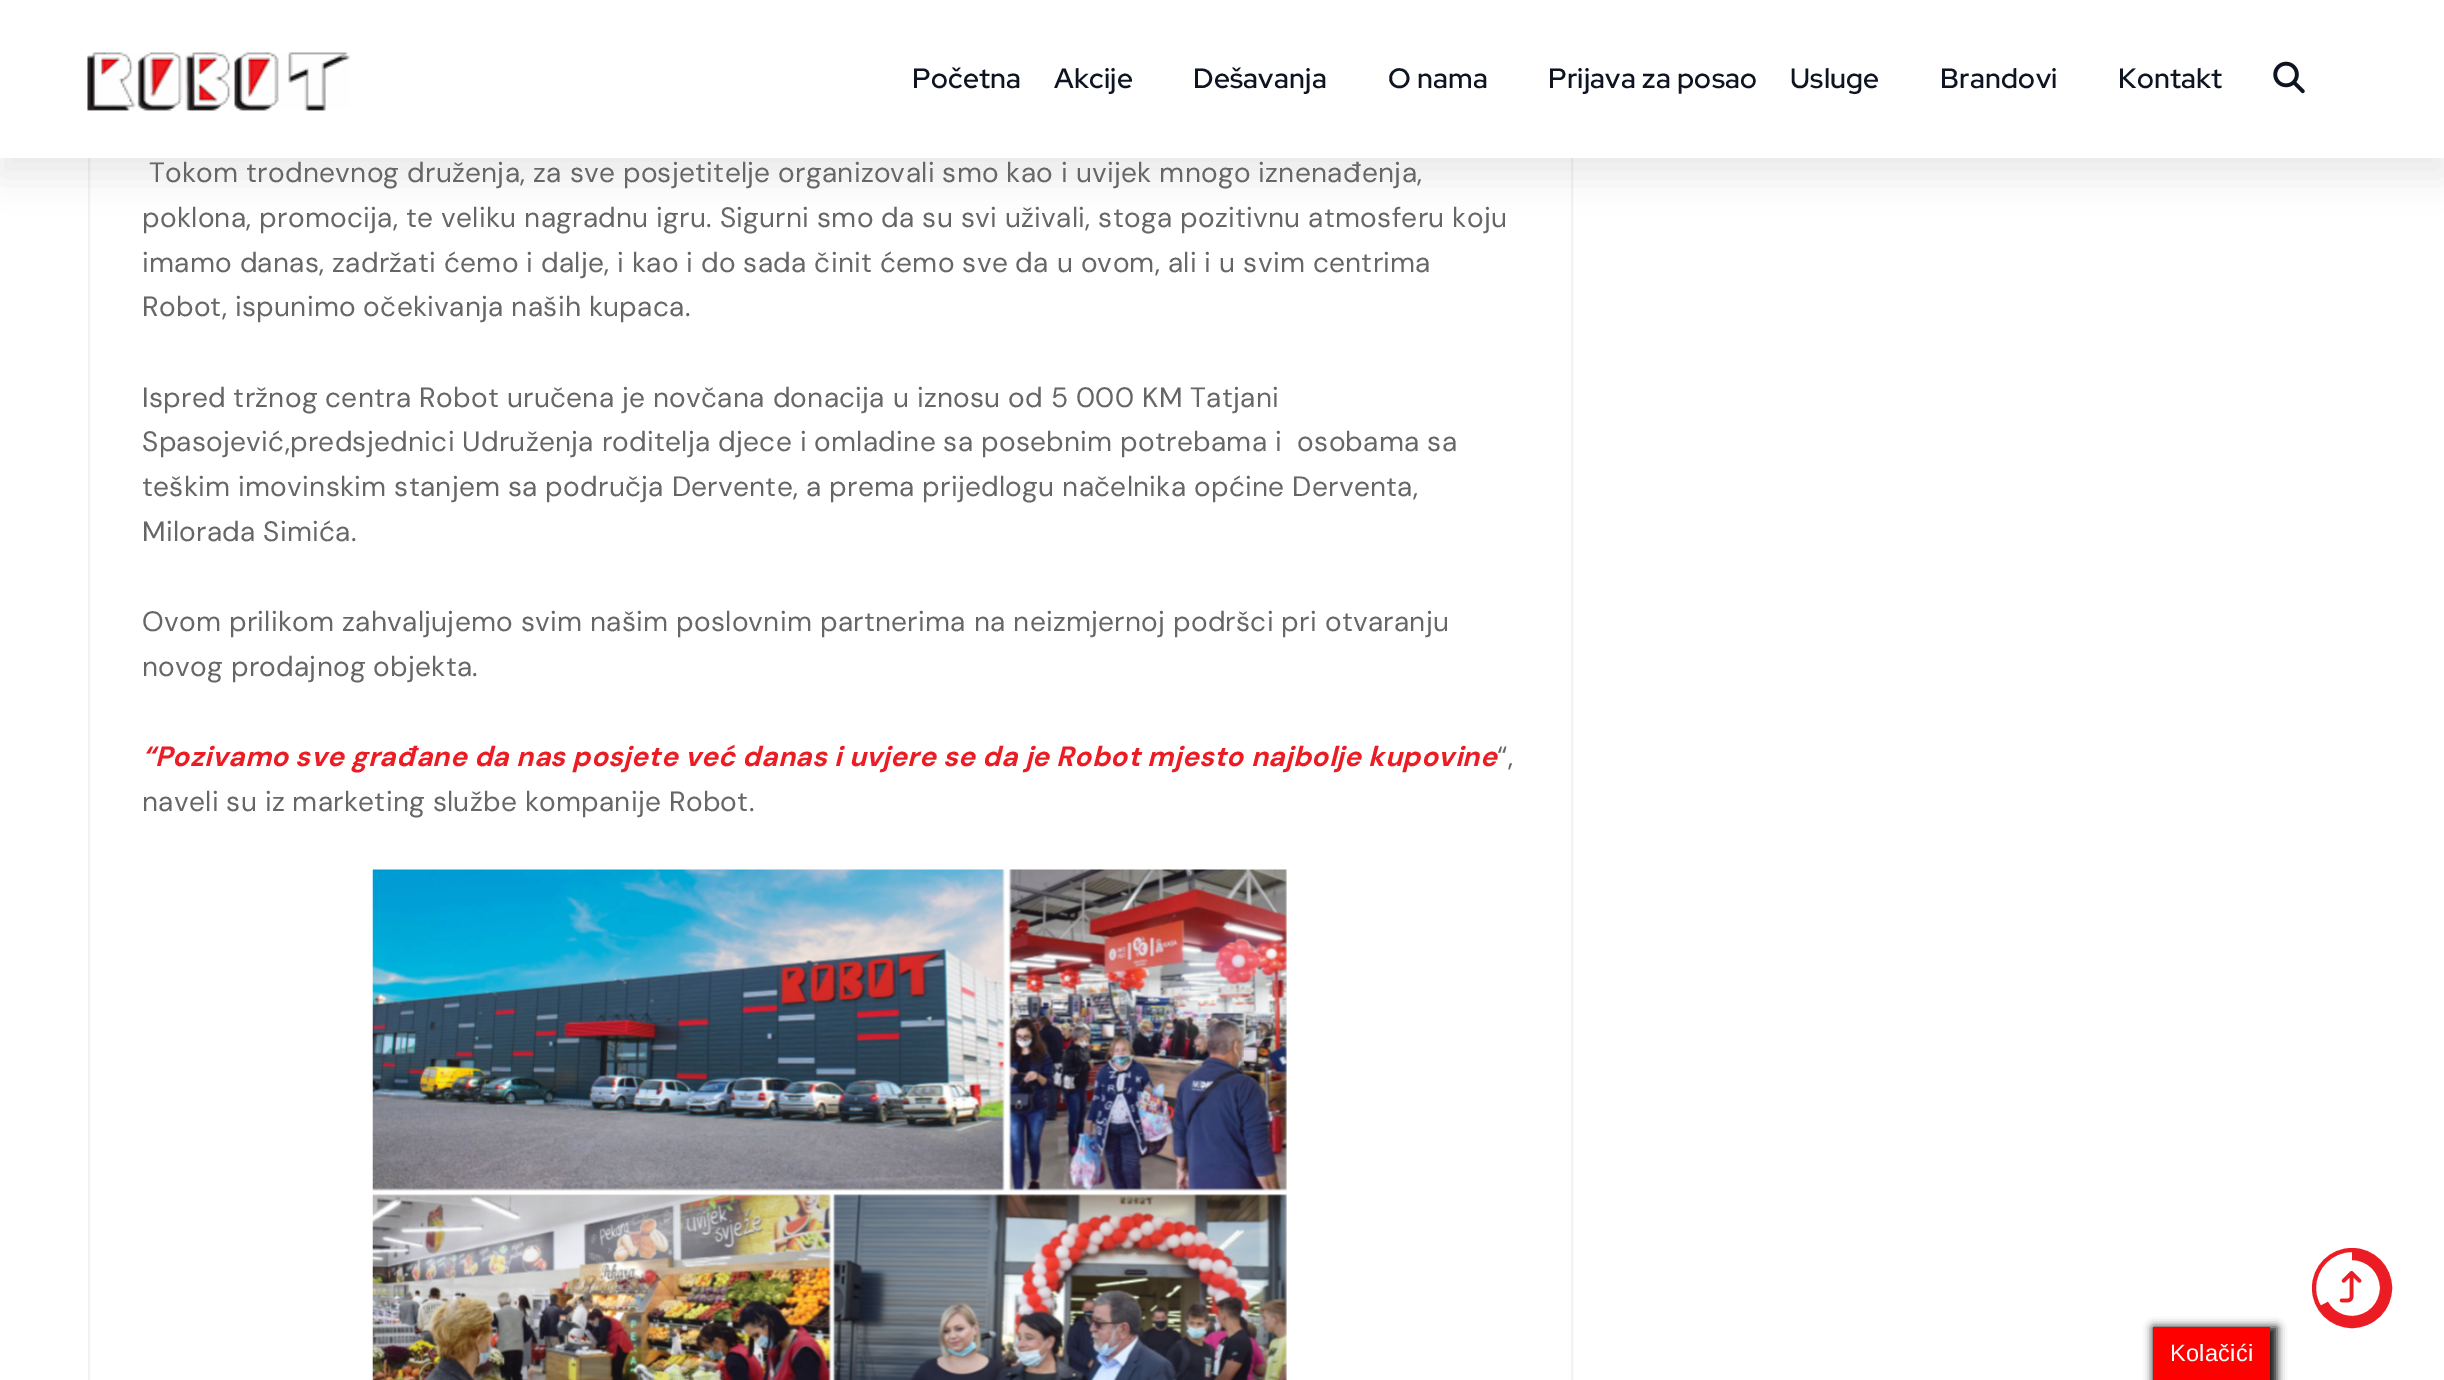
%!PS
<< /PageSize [2444 1380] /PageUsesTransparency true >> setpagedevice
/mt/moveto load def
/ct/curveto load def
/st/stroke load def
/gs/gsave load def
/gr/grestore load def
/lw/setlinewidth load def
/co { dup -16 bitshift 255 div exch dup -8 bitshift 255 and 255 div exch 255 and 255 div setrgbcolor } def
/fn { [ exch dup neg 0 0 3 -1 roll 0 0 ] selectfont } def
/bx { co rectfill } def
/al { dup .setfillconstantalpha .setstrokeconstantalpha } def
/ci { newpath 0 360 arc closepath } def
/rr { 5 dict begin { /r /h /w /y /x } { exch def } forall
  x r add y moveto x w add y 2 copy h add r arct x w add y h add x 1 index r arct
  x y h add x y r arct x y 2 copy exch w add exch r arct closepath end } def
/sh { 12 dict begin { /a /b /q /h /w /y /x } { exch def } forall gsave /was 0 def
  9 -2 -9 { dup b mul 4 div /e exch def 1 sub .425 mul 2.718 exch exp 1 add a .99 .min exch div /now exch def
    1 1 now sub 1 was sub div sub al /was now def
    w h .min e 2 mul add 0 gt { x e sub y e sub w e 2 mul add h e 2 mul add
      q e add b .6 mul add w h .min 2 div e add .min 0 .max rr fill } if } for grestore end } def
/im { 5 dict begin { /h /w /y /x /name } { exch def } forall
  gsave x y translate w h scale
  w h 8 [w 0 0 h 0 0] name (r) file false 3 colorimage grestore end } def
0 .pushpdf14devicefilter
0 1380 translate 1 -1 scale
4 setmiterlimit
0 0 2444 1380 16#FFFFFF bx
16#F2F2F2 co
2 lw
89 -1 1483 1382 rectstroke
16#1B182F co
0 18 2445 157 0 17.5 .1 sh
0 0 2444 158 16#FFFFFF bx
(media/1.raw) 87 52 263 59 im
(media/2.raw) 2273 61 32 33 im
(media/3.raw) 372 869 915 511 im
gs
2314 1250 77 77 38.5 rr clip newpath
16#EC1C24 co
18.1 lw
2352 1251 mt 2372.5 1251 2389 1267.5 2389 1288 ct 2389 1308.5 2372.5 1325 2352 1325 ct 2338 1325 2326 1317.5 2320 1306 ct st
gr
16#EC1C24 co
4 lw
2352 1288 38 ci st
(media/4.raw) 2339 1270 23 33 im
16#161616 co
2153 1327 124 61 0 4.5 1 sh
2153 1327 117 53 16#FF0000 bx
/RedHatDisplay-SemiBold 28 fn
16#0E1422 co
912 88 mt .28 0 (Početna) ashow
1054 88 mt .28 0 (Akcije) ashow
1193 88 mt .28 0 (Dešavanja) ashow
1388 88 mt .28 0 (O nama) ashow
1548 88 mt .28 0 (Prijava za posao) ashow
1790 88 mt .28 0 (Usluge) ashow
1940 88 mt .28 0 (Brandovi) ashow
2118 88 mt .28 0 (Kontakt) ashow
/DMSans-Regular 28 fn
16#666666 co
149 182 mt .28 0 (Tokom trodnevnog druženja, za sve posjetitelje organizovali smo kao i uvijek mnogo iznenađenja,) ashow
142 227 mt .28 0 (poklona, promocija, te veliku nagradnu igru. Sigurni smo da su svi uživali, stoga pozitivnu atmosferu koju) ashow
142 272 mt .28 0 (imamo danas, zadržati ćemo i dalje, i kao i do sada činit ćemo sve da u ovom, ali i u svim centrima) ashow
142 316 mt .28 0 (Robot, ispunimo očekivanja naših kupaca.) ashow
142 407 mt .28 0 (Ispred tržnog centra Robot uručena je novčana donacija u iznosu od 5 000 KM Tatjani) ashow
142 451 mt .28 0 (Spasojević,predsjednici Udruženja roditelja djece i omladine sa posebnim potrebama i  osobama sa) ashow
142 496 mt .28 0 (teškim imovinskim stanjem sa područja Dervente, a prema prijedlogu načelnika općine Derventa,) ashow
142 541 mt .28 0 (Milorada Simića.) ashow
142 631 mt .28 0 (Ovom prilikom zahvaljujemo svim našim poslovnim partnerima na neizmjernoj podršci pri otvaranju) ashow
142 676 mt .28 0 (novog prodajnog objekta.) ashow
/DMSans-BoldItalic 28 fn
16#EC1C24 co
142 766 mt .28 0 (“Pozivamo sve građane da nas posjete već danas i uvjere se da je Robot mjesto najbolje kupovine) ashow
/DMSans-Regular 28 fn
16#666666 co
1497 766 mt .28 0 (“,) ashow
142 811 mt .28 0 (naveli su iz marketing službe kompanije Robot.) ashow
/LiberationSans-Regular 23.5 fn
16#FFFFFF co
2170 1361 mt .28 0 (Kolačići) ashow
.poppdf14devicefilter showpage
